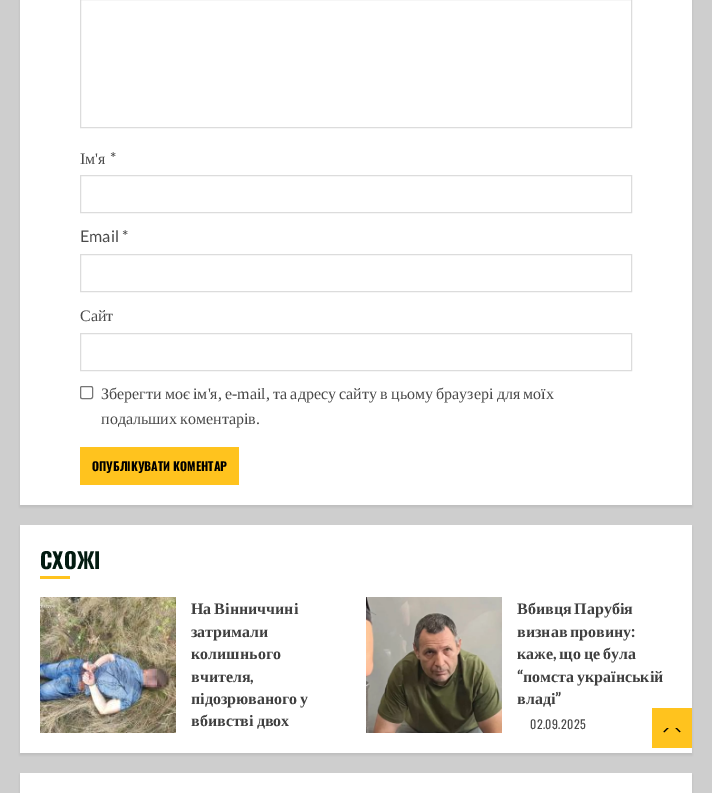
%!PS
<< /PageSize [712 793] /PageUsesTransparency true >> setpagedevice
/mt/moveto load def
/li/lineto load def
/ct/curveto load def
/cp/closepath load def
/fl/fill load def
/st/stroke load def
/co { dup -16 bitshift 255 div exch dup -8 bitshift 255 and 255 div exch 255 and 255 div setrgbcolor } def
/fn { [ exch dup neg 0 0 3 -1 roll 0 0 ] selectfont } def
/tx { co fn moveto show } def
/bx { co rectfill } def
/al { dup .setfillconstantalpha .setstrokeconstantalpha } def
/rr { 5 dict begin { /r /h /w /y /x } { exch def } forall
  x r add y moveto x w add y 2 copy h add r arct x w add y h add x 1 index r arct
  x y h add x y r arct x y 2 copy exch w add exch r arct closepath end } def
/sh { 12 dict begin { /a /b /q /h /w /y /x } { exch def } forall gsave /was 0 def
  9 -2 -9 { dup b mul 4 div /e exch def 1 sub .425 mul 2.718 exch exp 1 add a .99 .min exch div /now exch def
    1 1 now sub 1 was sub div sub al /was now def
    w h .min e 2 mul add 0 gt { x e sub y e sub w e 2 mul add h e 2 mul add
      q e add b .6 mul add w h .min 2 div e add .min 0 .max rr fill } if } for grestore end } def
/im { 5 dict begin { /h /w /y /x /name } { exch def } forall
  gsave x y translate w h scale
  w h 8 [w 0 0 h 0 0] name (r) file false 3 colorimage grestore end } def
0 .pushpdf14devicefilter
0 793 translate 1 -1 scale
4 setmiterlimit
0 0 712 793 16#CECECE bx
16#000000 co
20 -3 672 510 0 1 .08 sh
20 0 672 505 16#FFFFFF bx
16#DCDCDC co
80.5 -.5 551 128 rectstroke
80.5 175.5 551 37 rectstroke
80.5 254.5 551 37 rectstroke
80.5 333.5 551 37 rectstroke
16#767676 co
80.5 386.5 12 12 1.5 rr st
80 447 159 38 16#FFC31E bx
16#000000 co
20 527 672 228 0 1 .08 sh
20 525 672 228 16#FFFFFF bx
40 576 30 3 16#FFC31E bx
(media/1.raw) 40 597 136 136 im
(media/2.raw) 366 597 136 136 im
16#000000 co
20 775 672 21 0 1 .08 sh
20 773 672 20 16#FFFFFF bx
652 708 40 40 16#FFC31E bx
16#000000 co
667 733 mt 670 733 678.5 734 680.5 731.5 ct 677 728 li 667 728 li 663.5 731.5 li 664 732.5 665.5 733 667 733 ct cp fl
16#FFC31E co
682 735 mt 662 735 li 672 725 li cp fl
(Ім'я) 80 164 /LiberationSerif-Regular 16 16#4A4A4A tx
(*) 110 164 /Lato-Regular 16 16#4A4A4A tx
(Email *) 80 242 /Lato-Regular 16 16#4A4A4A tx
(Сайт) 80 321 /LiberationSerif-Regular 16 16#4A4A4A tx
101 399 mt -.75 0 32 (Зберегти моє ім'я, e-mail, та адресу сайту в цьому браузері для моїх) widthshow
101 424 mt -1 0 32 (подальших коментарів.) widthshow
(ОПУБЛІКУВАТИ КОМЕНТАР) 92 471 /Oswald-Bold 12 16#000000 tx
(CХОЖІ) 40 569 /Oswald-Bold 22 16#031B11 tx
/LiberationSerif-Bold 16 fn
16#404040 co
191 614 mt -1 0 32 (На Вінниччині) widthshow
(затримали) 191 637 /LiberationSerif-Bold 16 16#404040 tx
(колишнього) 191 659 /LiberationSerif-Bold 16 16#404040 tx
(вчителя) 191 682 /LiberationSerif-Bold 16 16#404040 tx
(,) 250 682 /Lato-Bold 16 16#404040 tx
/LiberationSerif-Bold 16 fn
191 704 mt -1 0 32 (підозрюваного у) widthshow
191 726 mt -1 0 32 (вбивстві двох) widthshow
517 614 mt -1 0 32 (Вбивця Парубія) widthshow
517 637 mt -1 0 32 (визнав провину) widthshow
(:) 631 637 /Lato-Bold 16 16#404040 tx
(каже) 517 659 /LiberationSerif-Bold 16 16#404040 tx
(,) 553 659 /Lato-Bold 16 16#404040 tx
/LiberationSerif-Bold 16 fn
559 659 mt -1 0 32 (що це була) widthshow
(“) 517 682 /Lato-Bold 16 16#404040 tx
/LiberationSerif-Bold 16 fn
523 682 mt -1 0 32 (помста українській) widthshow
(владі) 517 704 /LiberationSerif-Bold 16 16#404040 tx
(”) 555 704 /Lato-Bold 16 16#404040 tx
/Oswald-Regular 12 fn
16#4A4A4A co
530 729 mt .4 0 (02.09.2025) ashow
.poppdf14devicefilter showpage
